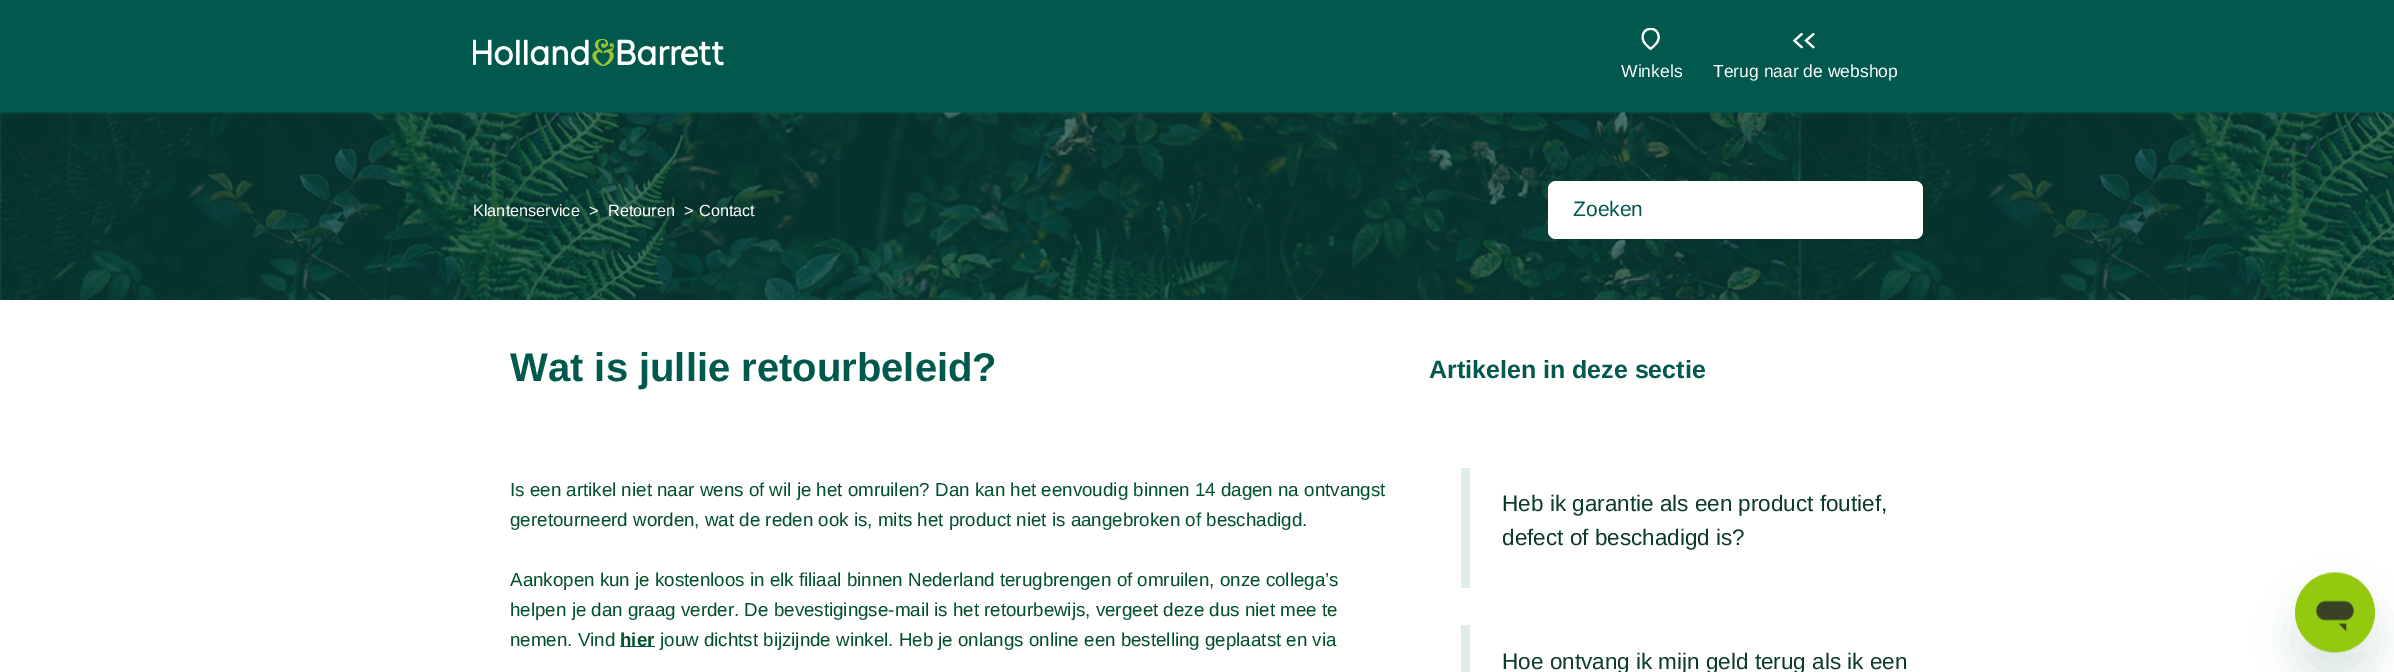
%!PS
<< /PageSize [2394 672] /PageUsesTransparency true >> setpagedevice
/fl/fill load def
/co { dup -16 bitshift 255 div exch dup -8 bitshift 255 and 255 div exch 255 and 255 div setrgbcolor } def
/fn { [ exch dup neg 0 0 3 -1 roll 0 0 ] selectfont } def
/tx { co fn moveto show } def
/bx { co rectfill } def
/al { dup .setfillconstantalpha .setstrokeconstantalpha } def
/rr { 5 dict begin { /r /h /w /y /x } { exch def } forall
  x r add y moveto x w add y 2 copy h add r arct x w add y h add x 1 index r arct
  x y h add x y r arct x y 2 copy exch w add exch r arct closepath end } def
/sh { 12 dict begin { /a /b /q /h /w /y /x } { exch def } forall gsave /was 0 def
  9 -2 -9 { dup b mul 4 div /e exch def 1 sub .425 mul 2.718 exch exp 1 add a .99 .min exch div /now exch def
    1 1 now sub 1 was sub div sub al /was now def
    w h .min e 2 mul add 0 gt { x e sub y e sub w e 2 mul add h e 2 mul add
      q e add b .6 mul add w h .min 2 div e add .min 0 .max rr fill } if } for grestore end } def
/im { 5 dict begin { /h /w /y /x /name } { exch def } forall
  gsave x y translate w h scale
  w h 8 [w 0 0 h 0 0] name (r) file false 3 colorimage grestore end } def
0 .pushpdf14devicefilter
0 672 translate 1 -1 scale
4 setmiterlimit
0 0 2394 672 16#FFFFFF bx
0 0 2394 113 16#00594C bx
(media/1.raw) 473 39 251 27 im
(media/2.raw) 1641 28 19 22 im
(media/3.raw) 1793 33 22 16 im
(media/4.raw) 0 112 2394 188 im
16#FFFFFF co
1548 181 375 58 8 rr fl
620 646 35 1 16#00594C bx
1461 468 9 120 16#E0ECE8 bx
1461 625 9 47 16#E0ECE8 bx
16#17494D co
2295 598 80 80 40 19 .15 sh
(media/5.raw) 2295 572 80 81 im
(Winkels) 1621 77 /LiberationSans-Regular 17.5 16#FFFFFF tx
(Terug naar de webshop) 1713 77 /LiberationSans-Regular 17.5 16#FFFFFF tx
(Klantenservice) 473 216 /LiberationSans-Regular 16.25 16#FFFFFF tx
(>) 589 216 /LiberationSans-Regular 16.25 16#FFFFFF tx
(Retouren) 608 216 /LiberationSans-Regular 16.25 16#FFFFFF tx
(>) 684 216 /LiberationSans-Regular 16.25 16#FFFFFF tx
(Contact) 699 216 /LiberationSans-Regular 16.25 16#FFFFFF tx
(Zoeken) 1573 216 /LiberationSans-Regular 21 16#00594C tx
(Wat is jullie retourbeleid?) 510 381 /LiberationSans-Bold 40 16#00594C tx
(Is een artikel niet naar wens of wil je het omruilen? Dan kan het eenvoudig binnen 14 dagen na ontvangst) 510 496 /LiberationSans-Regular 18.75 16#01512A tx
(geretourneerd worden, wat de reden ook is, mits het product niet is aangebroken of beschadigd.) 510 526 /LiberationSans-Regular 18.75 16#01512A tx
(Aankopen kun je kostenloos in elk filiaal binnen Nederland terugbrengen of omruilen, onze collega’s) 510 586 /LiberationSans-Regular 18.75 16#01512A tx
(helpen je dan graag verder. De bevestigingse-mail is het retourbewijs, vergeet deze dus niet mee te) 510 616 /LiberationSans-Regular 18.75 16#01512A tx
(nemen. Vind) 510 646 /LiberationSans-Regular 18.75 16#01512A tx
(hier) 620 646 /LiberationSans-Bold 18.75 16#01512A tx
(jouw dichtst bijzijnde winkel. Heb je onlangs online een bestelling geplaatst en via) 660 646 /LiberationSans-Regular 18.75 16#01512A tx
(Artikelen in deze sectie) 1429 378 /LiberationSans-Bold 25 16#00594C tx
(Heb ik garantie als een product foutief,) 1502 511 /LiberationSans-Regular 22.5 16#0C3C29 tx
(defect of beschadigd is?) 1502 545 /LiberationSans-Regular 22.5 16#0C3C29 tx
(Hoe ontvang ik mijn geld terug als ik een) 1502 669 /LiberationSans-Regular 22.5 16#0C3C29 tx
.poppdf14devicefilter showpage
